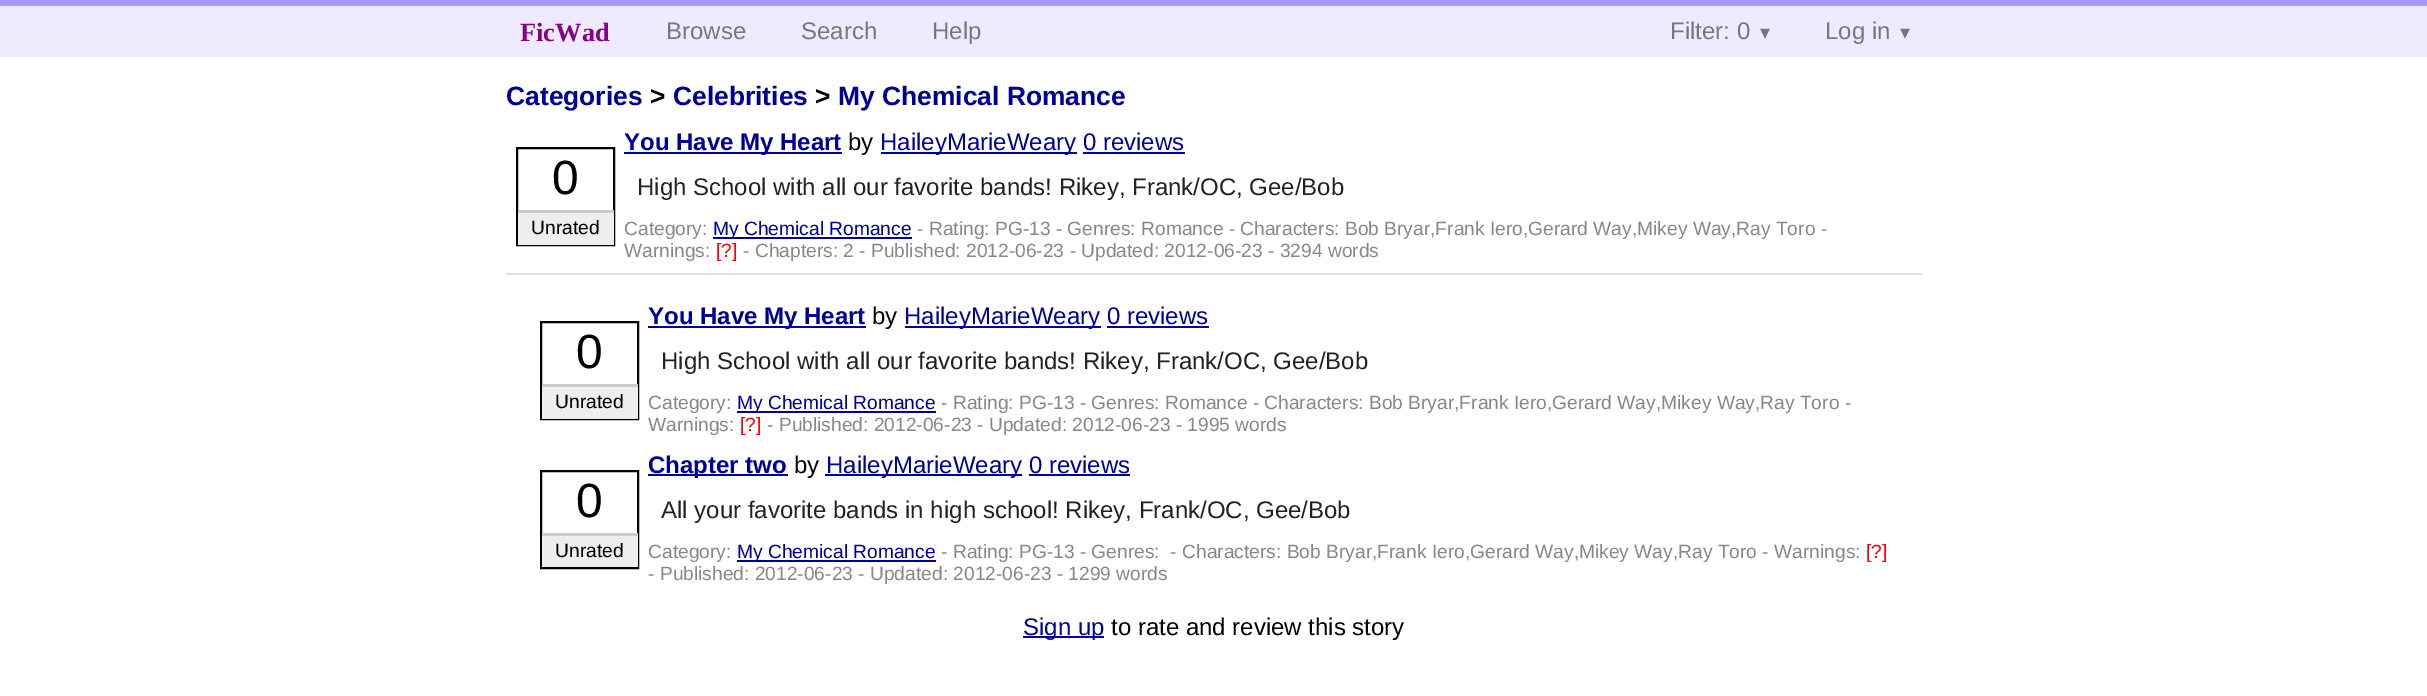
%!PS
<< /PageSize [2427 696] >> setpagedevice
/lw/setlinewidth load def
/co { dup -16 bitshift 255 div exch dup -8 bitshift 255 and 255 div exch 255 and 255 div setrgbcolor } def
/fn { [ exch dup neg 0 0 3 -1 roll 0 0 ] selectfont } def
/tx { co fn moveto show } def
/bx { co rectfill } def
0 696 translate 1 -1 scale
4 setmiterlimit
0 0 2427 696 16#FFFFFF bx
0 6 2427 51 16#EEEBFF bx
0 0 2427 6 16#A899FF bx
506 273 1416 2 16#E0E0E0 bx
624 152 218 2 16#000099 bx
881 152 196 2 16#000099 bx
1083 152 102 2 16#000099 bx
16#000000 co
2 lw
517 148 97 97 rectstroke
518 213 96 32 16#EEEEEE bx
518 210 96 3 16#CCCCCC bx
713 237 199 2 16#000099 bx
648 326 218 2 16#000099 bx
905 326 196 2 16#000099 bx
1107 326 102 2 16#000099 bx
16#000000 co
541 322 97 97 rectstroke
542 387 96 32 16#EEEEEE bx
542 384 96 3 16#CCCCCC bx
737 411 199 2 16#000099 bx
648 474 140 2 16#000099 bx
825 474 197 2 16#000099 bx
1029 474 101 2 16#000099 bx
16#000000 co
541 471 97 97 rectstroke
542 536 96 31 16#EEEEEE bx
542 533 96 3 16#CCCCCC bx
737 560 199 2 16#000099 bx
1023 636 81 2 16#000099 bx
(FicWad) 520 41 /LiberationSerif-Bold 26.4 16#880088 tx
(Browse) 666 39 /LiberationSans-Regular 24 16#777777 tx
(Search) 801 39 /LiberationSans-Regular 24 16#777777 tx
(Help) 932 39 /LiberationSans-Regular 24 16#777777 tx
(Filter: 0) 1670 39 /LiberationSans-Regular 24 16#777777 tx
(▾) 1760 39 /DejaVuSans-Regular 20 16#777777 tx
(Log in) 1825 39 /LiberationSans-Regular 24 16#777777 tx
(▾) 1900 39 /DejaVuSans-Regular 20 16#777777 tx
(Categories) 506 105 /LiberationSans-Bold 26.4 16#000099 tx
(>) 650 105 /LiberationSans-Bold 26.4 16#000000 tx
(Celebrities) 673 105 /LiberationSans-Bold 26.4 16#000099 tx
(>) 815 105 /LiberationSans-Bold 26.4 16#000000 tx
(My Chemical Romance) 838 105 /LiberationSans-Bold 26.4 16#000099 tx
(You Have My Heart) 624 150 /LiberationSans-Bold 24 16#000099 tx
(by) 848 150 /LiberationSans-Regular 24 16#000000 tx
(HaileyMarieWeary 0 reviews) 880 150 /LiberationSans-Regular 24 16#000099 tx
(0) 552 194 /LiberationSans-Regular 48 16#000000 tx
(Unrated) 531 234 /LiberationSans-Regular 19.2 16#000000 tx
(High School with all our favorite bands! Rikey, Frank/OC, Gee/Bob) 637 195 /LiberationSans-Regular 24 16#222222 tx
(Category:) 624 235 /LiberationSans-Regular 19.2 16#888888 tx
(My Chemical Romance) 713 235 /LiberationSans-Regular 19.2 16#000099 tx
(- Rating: PG-13 - Genres: Romance - Characters: Bob Bryar,Frank Iero,Gerard Way,Mikey Way,Ray Toro -) 917 235 /LiberationSans-Regular 19.2 16#888888 tx
(Warnings:) 624 257 /LiberationSans-Regular 19.2 16#888888 tx
([?]) 716 257 /LiberationSans-Regular 19.2 16#FF0000 tx
(- Chapters: 2 - Published: 2012-06-23 - Updated: 2012-06-23 - 3294 words) 743 257 /LiberationSans-Regular 19.2 16#888888 tx
(You Have My Heart) 648 324 /LiberationSans-Bold 24 16#000099 tx
(by) 872 324 /LiberationSans-Regular 24 16#000000 tx
(HaileyMarieWeary 0 reviews) 904 324 /LiberationSans-Regular 24 16#000099 tx
(0) 576 368 /LiberationSans-Regular 48 16#000000 tx
(Unrated) 555 408 /LiberationSans-Regular 19.2 16#000000 tx
(High School with all our favorite bands! Rikey, Frank/OC, Gee/Bob) 661 369 /LiberationSans-Regular 24 16#222222 tx
(Category:) 648 409 /LiberationSans-Regular 19.2 16#888888 tx
(My Chemical Romance) 737 409 /LiberationSans-Regular 19.2 16#000099 tx
(- Rating: PG-13 - Genres: Romance - Characters: Bob Bryar,Frank Iero,Gerard Way,Mikey Way,Ray Toro -) 941 409 /LiberationSans-Regular 19.2 16#888888 tx
(Warnings:) 648 431 /LiberationSans-Regular 19.2 16#888888 tx
([?]) 740 431 /LiberationSans-Regular 19.2 16#FF0000 tx
(- Published: 2012-06-23 - Updated: 2012-06-23 - 1995 words) 767 431 /LiberationSans-Regular 19.2 16#888888 tx
(Chapter two) 648 473 /LiberationSans-Bold 24 16#000099 tx
(by) 794 473 /LiberationSans-Regular 24 16#000000 tx
(HaileyMarieWeary 0 reviews) 826 473 /LiberationSans-Regular 24 16#000099 tx
(0) 576 517 /LiberationSans-Regular 48 16#000000 tx
(Unrated) 555 557 /LiberationSans-Regular 19.2 16#000000 tx
(All your favorite bands in high school! Rikey, Frank/OC, Gee/Bob) 661 518 /LiberationSans-Regular 24 16#222222 tx
(Category:) 648 558 /LiberationSans-Regular 19.2 16#888888 tx
(My Chemical Romance) 737 558 /LiberationSans-Regular 19.2 16#000099 tx
(- Rating: PG-13 - Genres:  - Characters: Bob Bryar,Frank Iero,Gerard Way,Mikey Way,Ray Toro - Warnings:) 941 558 /LiberationSans-Regular 19.2 16#888888 tx
([?]) 1866 558 /LiberationSans-Regular 19.2 16#FF0000 tx
(- Published: 2012-06-23 - Updated: 2012-06-23 - 1299 words) 648 580 /LiberationSans-Regular 19.2 16#888888 tx
(Sign up) 1023 635 /LiberationSans-Regular 24 16#000099 tx
(to rate and review this story) 1111 635 /LiberationSans-Regular 24 16#000000 tx
showpage
